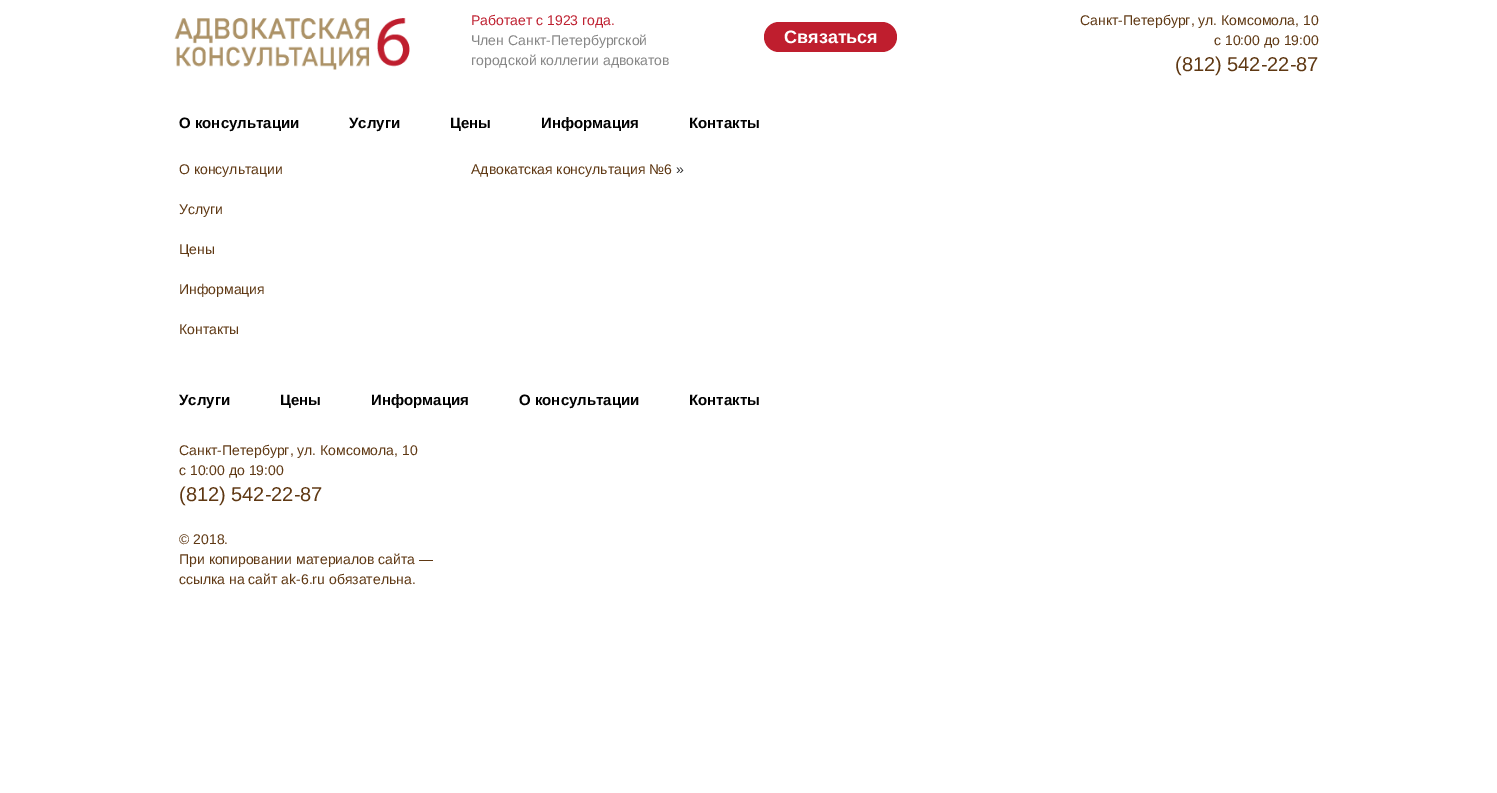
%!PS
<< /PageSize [1497 793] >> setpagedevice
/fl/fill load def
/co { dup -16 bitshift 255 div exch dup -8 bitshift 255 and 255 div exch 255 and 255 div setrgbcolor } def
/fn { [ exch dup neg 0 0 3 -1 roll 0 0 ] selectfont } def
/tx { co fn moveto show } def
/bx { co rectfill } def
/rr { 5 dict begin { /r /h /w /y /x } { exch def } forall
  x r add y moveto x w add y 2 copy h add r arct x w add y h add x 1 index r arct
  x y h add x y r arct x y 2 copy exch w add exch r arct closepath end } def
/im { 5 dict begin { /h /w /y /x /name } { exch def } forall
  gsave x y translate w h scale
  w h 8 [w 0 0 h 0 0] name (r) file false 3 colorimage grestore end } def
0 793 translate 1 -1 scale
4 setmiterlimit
0 0 1497 793 16#FFFFFF bx
(media/1.raw) 174 18 236 52 im
16#BF1E2E co
764 22 133 30 15 rr fl
(Работает с 1923 года.) 471 25 /LiberationSans-Regular 14 16#BF2131 tx
(Член Санкт-Петербургской) 471 45 /LiberationSans-Regular 14 16#878787 tx
(городской коллегии адвокатов) 471 65 /LiberationSans-Regular 14 16#878787 tx
(Связаться) 784 43 /LiberationSans-Bold 18 16#FFFFFF tx
(Санкт-Петербург, ул. Комсомола, 10) 1080 25 /LiberationSans-Regular 14 16#5F3813 tx
(с 10:00 до 19:00) 1214 45 /LiberationSans-Regular 14 16#5F3813 tx
(\(812\) 542-22-87) 1175 71 /LiberationSans-Regular 20 16#5F3813 tx
(О консультации) 179 128 /LiberationSans-Bold 15 16#000000 tx
(Услуги) 349 128 /LiberationSans-Bold 15 16#000000 tx
(Цены) 450 128 /LiberationSans-Bold 15 16#000000 tx
(Информация) 541 128 /LiberationSans-Bold 15 16#000000 tx
(Контакты) 689 128 /LiberationSans-Bold 15 16#000000 tx
(О консультации) 179 174 /LiberationSans-Regular 14 16#5F3813 tx
(Услуги) 179 214 /LiberationSans-Regular 14 16#5F3813 tx
(Цены) 179 254 /LiberationSans-Regular 14 16#5F3813 tx
(Информация) 179 294 /LiberationSans-Regular 14 16#5F3813 tx
(Контакты) 179 334 /LiberationSans-Regular 14 16#5F3813 tx
(Адвокатская консультация №6) 471 174 /LiberationSans-Regular 14 16#5F3813 tx
(») 676 174 /LiberationSans-Regular 14 16#333333 tx
(Услуги) 179 405 /LiberationSans-Bold 15 16#000000 tx
(Цены) 280 405 /LiberationSans-Bold 15 16#000000 tx
(Информация) 371 405 /LiberationSans-Bold 15 16#000000 tx
(О консультации) 519 405 /LiberationSans-Bold 15 16#000000 tx
(Контакты) 689 405 /LiberationSans-Bold 15 16#000000 tx
(Санкт-Петербург, ул. Комсомола, 10) 179 455 /LiberationSans-Regular 14 16#5F3813 tx
(с 10:00 до 19:00) 179 475 /LiberationSans-Regular 14 16#5F3813 tx
(\(812\) 542-22-87) 179 501 /LiberationSans-Regular 20 16#5F3813 tx
(© 2018.) 179 544 /LiberationSans-Regular 14 16#5F3813 tx
(При копировании материалов сайта —) 179 564 /LiberationSans-Regular 14 16#5F3813 tx
(ссылка на сайт ak-6.ru обязательна.) 179 584 /LiberationSans-Regular 14 16#5F3813 tx
showpage
